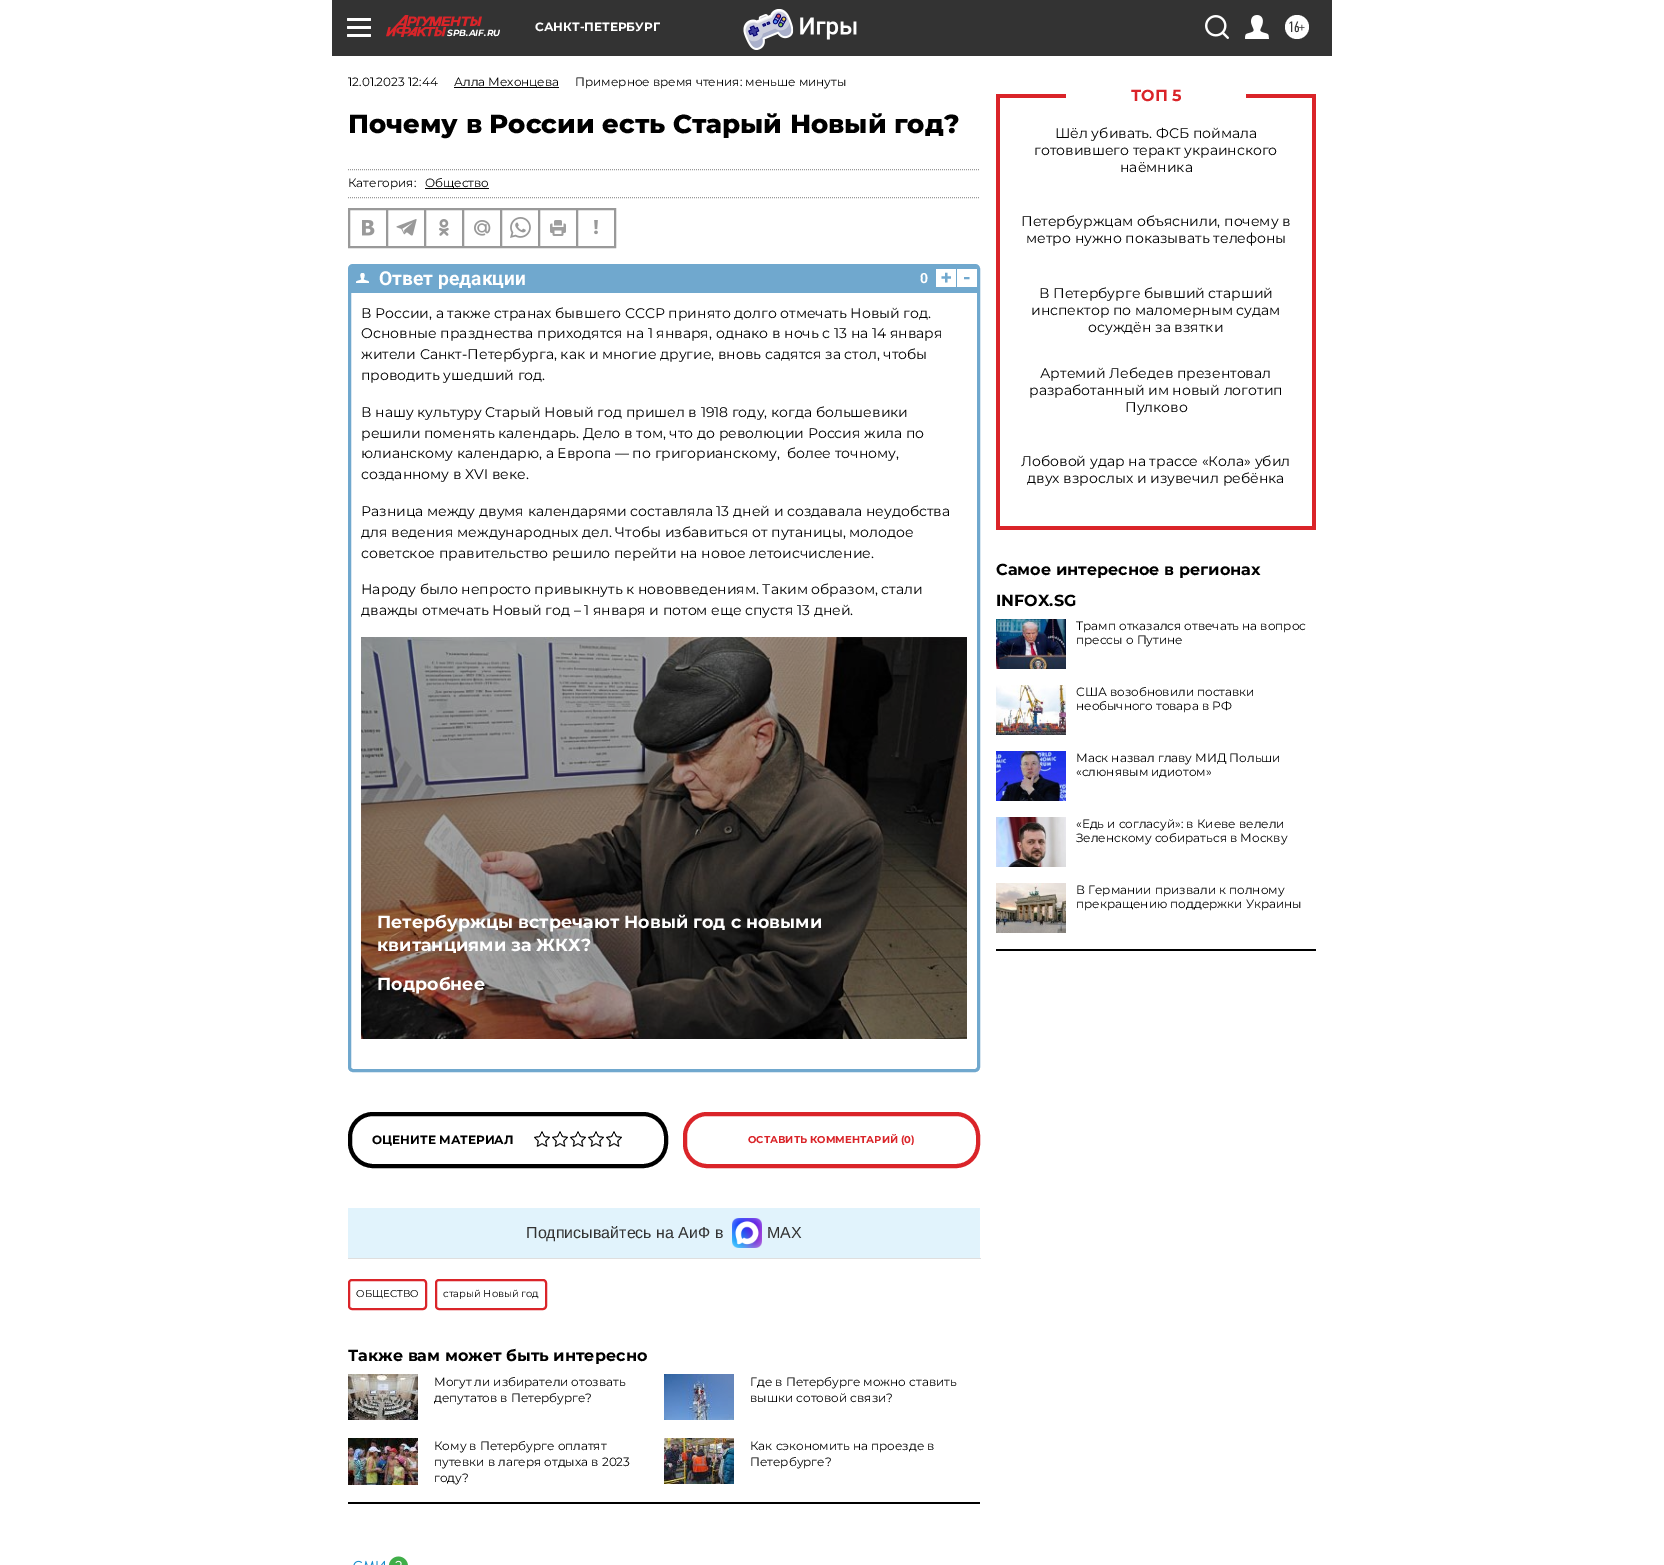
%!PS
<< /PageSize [1664 1565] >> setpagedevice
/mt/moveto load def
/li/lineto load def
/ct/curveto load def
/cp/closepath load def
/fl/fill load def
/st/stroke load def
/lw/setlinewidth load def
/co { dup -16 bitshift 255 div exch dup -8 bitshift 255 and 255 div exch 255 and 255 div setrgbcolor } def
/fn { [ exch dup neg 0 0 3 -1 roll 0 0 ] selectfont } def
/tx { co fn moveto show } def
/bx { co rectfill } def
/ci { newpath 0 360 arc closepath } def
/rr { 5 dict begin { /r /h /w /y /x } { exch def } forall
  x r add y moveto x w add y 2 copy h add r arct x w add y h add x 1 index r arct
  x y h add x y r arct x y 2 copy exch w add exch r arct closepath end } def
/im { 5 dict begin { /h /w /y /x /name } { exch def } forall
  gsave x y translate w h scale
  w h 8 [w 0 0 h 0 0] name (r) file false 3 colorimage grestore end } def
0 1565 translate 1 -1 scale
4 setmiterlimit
0 0 1664 1565 16#FFFFFF bx
332 0 1000 56 16#333333 bx
16#FFFFFF co
347 18 24 3 1 rr fl
347 26 24 3 1 rr fl
347 34 24 3 1 rr fl
(media/1.raw) 743 9 114 41 im
(media/2.raw) 1205 15 24 24 im
(media/3.raw) 1245 15 24 24 im
1297 27 12 ci fl
(media/4.raw) 386 15 96 22 im
454 87 105 1 16#000000 bx
16#999999 co
[1 1] 0 setdash
348 169.5 mt 980 169.5 li st
348 197.5 mt 980 197.5 li st
425 188 64 1 16#000000 bx
16#999999 co
[] 0 setdash
348.5 208.5 267 39 rectstroke
349.5 209.5 37 37 rectstroke
(media/5.raw) 362 220 13 16 im
387.5 209.5 37 37 rectstroke
(media/6.raw) 396 219 21 17 im
425.5 209.5 37 37 rectstroke
(media/7.raw) 439 219 10 17 im
463.5 209.5 37 37 rectstroke
(media/8.raw) 474 220 17 16 im
501.5 209.5 37 37 rectstroke
(media/9.raw) 510 217 21 21 im
539.5 209.5 37 37 rectstroke
(media/10.raw) 550 220 16 16 im
577.5 209.5 37 37 rectstroke
(media/11.raw) 594 220 4 15 im
16#70A8CE co
3 lw
349.5 265.5 629 805 3.5 rr st
353 267 mt 975 267 li 976 267 977 268 977 269 ct 977 293 li 351 293 li 351 269 li 351 268 352 267 353 267 ct cp fl
(media/12.raw) 356 273 13 10 im
936 269 20 18 16#FFFFFF bx
957 269 20 18 16#FFFFFF bx
(media/13.raw) 361 637 606 402 im
16#000000 co
4 lw
350 1114 316 52 23 rr st
(media/14.raw) 534 1131 16 16 im
(media/14.raw) 552 1131 16 16 im
(media/14.raw) 570 1131 16 16 im
(media/14.raw) 588 1131 16 16 im
(media/14.raw) 606 1131 16 16 im
16#DA2429 co
685 1114 293 52 22 rr st
348 1208 632 50 16#E1F3FC bx
348 1258 633 1 16#DEDEDE bx
(media/15.raw) 732 1218 30 30 im
16#DA2429 co
2 lw
349 1280 77 29 3 rr st
436 1280 110 29 3 rr st
348 1502 632 2 16#000000 bx
(media/16.raw) 348 1374 70 46 im
(media/17.raw) 664 1374 70 46 im
(media/18.raw) 348 1438 70 47 im
(media/19.raw) 664 1438 70 46 im
(media/20.raw) 353 1556 55 9 im
1312 94 4 436 16#DA2429 bx
996 526 320 4 16#DA2429 bx
996 94 4 436 16#DA2429 bx
996 94 70 4 16#DA2429 bx
1246 94 70 4 16#DA2429 bx
(media/21.raw) 996 619 70 50 im
(media/22.raw) 996 685 70 50 im
(media/23.raw) 996 751 70 50 im
(media/24.raw) 996 817 70 50 im
996 949 320 2 16#000000 bx
(media/25.raw) 996 883 70 50 im
(САНКТ-ПЕТЕРБУРГ) 535 31 /Montserrat-Bold 12 16#FFFFFF tx
(16+) 1288 32 /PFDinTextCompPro-Regular 15 16#333333 tx
(SPB.AIF.RU) 447 36 /Montserrat-BoldItalic 9 16#FFFFFF tx
(12.01.2023 12:44) 348 86 /Montserrat-Regular 12 16#000000 tx
(Алла Мехонцева) 454 86 /Montserrat-Regular 12 16#000000 tx
(Примерное время чтения: меньше минуты) 575 86 /Montserrat-Regular 12 16#000000 tx
(Почему в России есть Старый Новый год?) 348 133 /Montserrat-ExtraBold 26 16#000000 tx
(Категория:) 348 187 /Montserrat-Regular 12 16#000000 tx
(Общество) 425 187 /Montserrat-Regular 12 16#000000 tx
(Ответ редакции) 379 285 /Roboto-Bold 19.25 16#FFFFFF tx
(0) 920 283 /Roboto-Bold 14 16#FFFFFF tx
(+) 941 284 /Roboto-Bold 19.25 16#70A8CE tx
(-) 963 284 /Roboto-Bold 19.25 16#70A8CE tx
(В России, а также странах бывшего СССР принято долго отмечать Новый год.) 361 318 /Montserrat-Regular 14 16#000000 tx
(Основные празднества приходятся на 1 января, однако в ночь с 13 на 14 января) 361 338 /Montserrat-Regular 14 16#000000 tx
(жители Санкт-Петербурга, как и многие другие, вновь садятся за стол, чтобы) 361 359 /Montserrat-Regular 14 16#000000 tx
(проводить ушедший год.) 361 380 /Montserrat-Regular 14 16#000000 tx
(В нашу культуру Старый Новый год пришел в 1918 году, когда большевики) 361 417 /Montserrat-Regular 14 16#000000 tx
(решили поменять календарь. Дело в том, что до революции Россия жила по) 361 438 /Montserrat-Regular 14 16#000000 tx
(юлианскому календарю, а Европа — по григорианскому,  более точному,) 361 458 /Montserrat-Regular 14 16#000000 tx
(созданному в XVI веке.) 361 479 /Montserrat-Regular 14 16#000000 tx
(Разница между двумя календарями составляла 13 дней и создавала неудобства) 361 516 /Montserrat-Regular 14 16#000000 tx
(для ведения международных дел. Чтобы избавиться от путаницы, молодое) 361 537 /Montserrat-Regular 14 16#000000 tx
(советское правительство решило перейти на новое летоисчисление.) 361 558 /Montserrat-Regular 14 16#000000 tx
(Народу было непросто привыкнуть к нововведениям. Таким образом, стали) 361 594 /Montserrat-Regular 14 16#000000 tx
(дважды отмечать Новый год – 1 января и потом еще спустя 13 дней.) 361 615 /Montserrat-Regular 14 16#000000 tx
(Петербуржцы встречают Новый год с новыми) 377 928 /Montserrat-Bold 17.5 16#FFFFFF tx
(квитанциями за ЖКХ?) 377 951 /Montserrat-Bold 17.5 16#FFFFFF tx
(Подробнее) 377 990 /Montserrat-Bold 17.5 16#FFFFFF tx
(ОЦЕНИТЕ МАТЕРИАЛ) 372 1144 /Montserrat-Bold 12 16#000000 tx
(ОСТАВИТЬ КОММЕНТАРИЙ \(0\)) 748 1143 /Montserrat-Bold 10 16#DA2429 tx
(Подписывайтесь на АиФ в) 526 1238 /LiberationSans-Regular 16 16#333333 tx
(MAX) 767 1238 /LiberationSans-Regular 16 16#333333 tx
(ОБЩЕСТВО) 356 1297 /Montserrat-Regular 10 16#000000 tx
(старый Новый год) 443 1297 /Montserrat-Regular 10 16#000000 tx
(Также вам может быть интересно) 348 1361 /Montserrat-Bold 16 16#000000 tx
(Могут ли избиратели отозвать) 434 1386 /Montserrat-Regular 12 16#000000 tx
(депутатов в Петербурге?) 434 1402 /Montserrat-Regular 12 16#000000 tx
(Где в Петербурге можно ставить) 750 1386 /Montserrat-Regular 12 16#000000 tx
(вышки сотовой связи?) 750 1402 /Montserrat-Regular 12 16#000000 tx
(Кому в Петербурге оплатят) 434 1450 /Montserrat-Regular 12 16#000000 tx
(путевки в лагеря отдыха в 2023) 434 1466 /Montserrat-Regular 12 16#000000 tx
(году?) 434 1482 /Montserrat-Regular 12 16#000000 tx
(Как сэкономить на проезде в) 750 1450 /Montserrat-Regular 12 16#000000 tx
(Петербурге?) 750 1466 /Montserrat-Regular 12 16#000000 tx
(ТОП 5) 1131 101 /Montserrat-Bold 16 16#DA2429 tx
(Шёл убивать. ФСБ поймала) 1055 138 /Montserrat-Regular 14 16#000000 tx
(готовившего теракт украинского) 1034 155 /Montserrat-Regular 14 16#000000 tx
(наёмника) 1120 172 /Montserrat-Regular 14 16#000000 tx
(Петербуржцам объяснили, почему в) 1021 226 /Montserrat-Regular 14 16#000000 tx
(метро нужно показывать телефоны) 1026 243 /Montserrat-Regular 14 16#000000 tx
(В Петербурге бывший старший) 1039 298 /Montserrat-Regular 14 16#000000 tx
(инспектор по маломерным судам) 1031 315 /Montserrat-Regular 14 16#000000 tx
(осуждён за взятки) 1088 332 /Montserrat-Regular 14 16#000000 tx
(Артемий Лебедев презентовал) 1040 378 /Montserrat-Regular 14 16#000000 tx
(разработанный им новый логотип) 1029 395 /Montserrat-Regular 14 16#000000 tx
(Пулково) 1125 412 /Montserrat-Regular 14 16#000000 tx
(Лобовой удар на трассе «Кола» убил) 1021 466 /Montserrat-Regular 14 16#000000 tx
(двух взрослых и изувечил ребёнка) 1027 483 /Montserrat-Regular 14 16#000000 tx
(Самое интересное в регионах) 996 575 /Montserrat-Bold 16 16#000000 tx
(INFOX.SG) 996 606 /Montserrat-Bold 16 16#000000 tx
(Трамп отказался отвечать на вопрос) 1076 630 /Montserrat-Regular 12 16#000000 tx
(прессы о Путине) 1076 644 /Montserrat-Regular 12 16#000000 tx
(США возобновили поставки) 1076 696 /Montserrat-Regular 12 16#000000 tx
(необычного товара в РФ) 1076 710 /Montserrat-Regular 12 16#000000 tx
(Маск назвал главу МИД Польши) 1076 762 /Montserrat-Regular 12 16#000000 tx
(«слюнявым идиотом») 1076 776 /Montserrat-Regular 12 16#000000 tx
(«Едь и согласуй»: в Киеве велели) 1076 828 /Montserrat-Regular 12 16#000000 tx
(Зеленскому собираться в Москву) 1076 842 /Montserrat-Regular 12 16#000000 tx
(В Германии призвали к полному) 1076 894 /Montserrat-Regular 12 16#000000 tx
(прекращению поддержки Украины) 1076 908 /Montserrat-Regular 12 16#000000 tx
showpage
